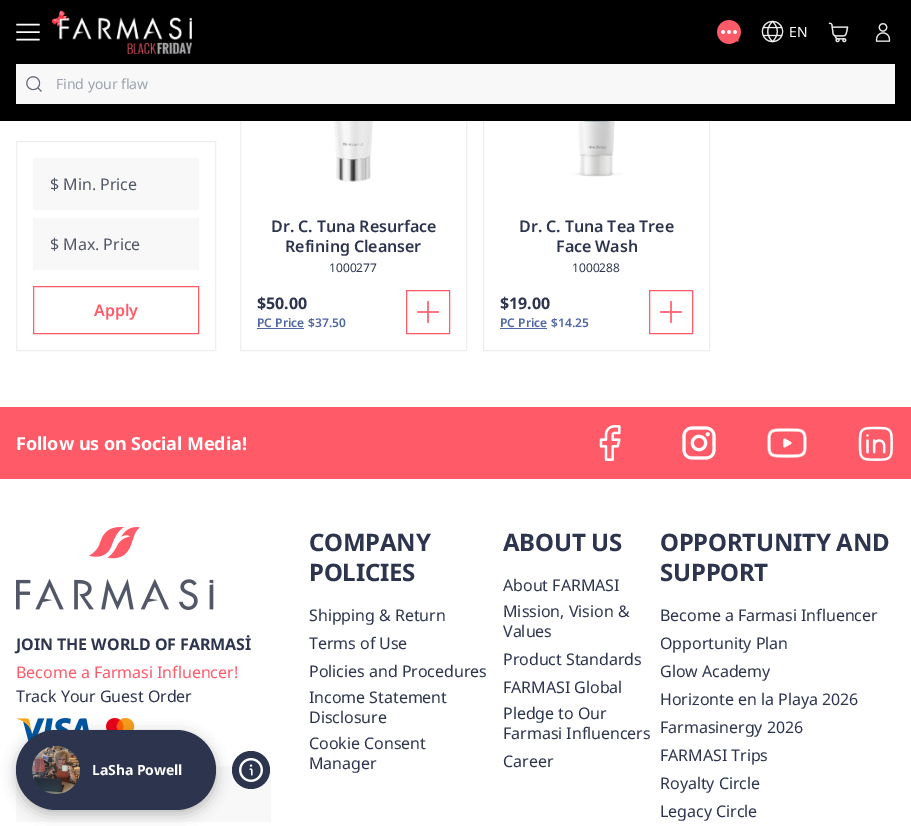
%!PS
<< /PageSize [911 826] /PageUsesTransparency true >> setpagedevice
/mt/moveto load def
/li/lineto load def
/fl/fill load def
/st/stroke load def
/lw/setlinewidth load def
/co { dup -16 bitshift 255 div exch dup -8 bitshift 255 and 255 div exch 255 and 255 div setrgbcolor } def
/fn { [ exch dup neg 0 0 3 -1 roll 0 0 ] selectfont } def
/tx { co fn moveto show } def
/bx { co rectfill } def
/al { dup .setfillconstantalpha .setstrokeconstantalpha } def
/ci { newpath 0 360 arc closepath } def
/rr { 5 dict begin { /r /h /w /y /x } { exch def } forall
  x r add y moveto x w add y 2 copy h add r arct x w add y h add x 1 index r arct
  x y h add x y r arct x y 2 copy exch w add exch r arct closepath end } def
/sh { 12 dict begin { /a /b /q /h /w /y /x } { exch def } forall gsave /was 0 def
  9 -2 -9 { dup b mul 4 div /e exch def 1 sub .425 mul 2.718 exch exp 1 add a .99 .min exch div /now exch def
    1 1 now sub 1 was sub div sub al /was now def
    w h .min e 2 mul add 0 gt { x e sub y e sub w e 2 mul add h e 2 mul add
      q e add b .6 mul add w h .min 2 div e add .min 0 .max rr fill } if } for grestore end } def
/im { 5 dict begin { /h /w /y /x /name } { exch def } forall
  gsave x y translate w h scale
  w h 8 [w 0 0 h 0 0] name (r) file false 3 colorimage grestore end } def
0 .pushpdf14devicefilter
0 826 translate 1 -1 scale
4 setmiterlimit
0 0 911 826 16#FFFFFF bx
16#EEEEEF co
240.5 -.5 226 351 rectstroke
483.5 -.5 226 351 rectstroke
0 0 911 121 16#000000 bx
16#FFFFFF co
1.5 lw
1 setlinecap
17 24.5 mt 39 24.5 li 17 32 mt 39 32 li 17 39.5 mt 39 39.5 li st
(media/1.raw) 52 10 140 44 im
(media/2.raw) 717 20 24 24 im
(media/3.raw) 761 20 23 23 im
(media/4.raw) 828 22 21 21 im
(media/5.raw) 875 23 16 19 im
16 64 879 40 16#F8F8F8 bx
(media/6.raw) 26 76 16 16 im
16#EEEEEF co
1 lw
0 setlinecap
16.5 141.5 199 209 rectstroke
33 158 166 52 16#F8F8F8 bx
33 218 166 52 16#F8F8F8 bx
16#FF5A68 co
33.5 286.5 165 47 rectstroke
(media/7.raw) 324 121 59 61 im
257 328 47 1 16#4D65A3 bx
16#FF5A68 co
406.5 290.5 43 43 rectstroke
(media/8.raw) 416 300 23 24 im
(media/9.raw) 568 121 56 56 im
500 328 47 1 16#4D65A3 bx
16#FF5A68 co
649.5 290.5 43 43 rectstroke
(media/8.raw) 659 300 23 24 im
(media/17.raw) 16 718 73 24 im
(media/18.raw) 106 718 29 12 im
16 766 255 56 16#F8F8F8 bx
16#000000 co
16 734 200 80 40 7 .25 sh
16#2D354E co
16 730 200 80 40 rr fl
(media/10.raw) 32 746 48 48 im
251 770 19 ci fl
(media/11.raw) 239 758 24 24 im
0 407 911 72 16#FF5A68 bx
(media/12.raw) 599 425 22 36 im
(media/13.raw) 682 426 34 34 im
(media/14.raw) 767 428 40 30 im
(media/15.raw) 858 426 35 35 im
(media/16.raw) 16 527 198 83 im
/NotoSans-Regular 14 fn
16#FFFFFF co
789 37 mt -.05 0 (EN) ashow
16#9CA3AF co
56 89 mt -.05 0 (Find your flaw) ashow
/NotoSans-Regular 16 fn
16#525767 co
50 190 mt -.05 0 ($ Min. Price) ashow
50 250 mt -.05 0 ($ Max. Price) ashow
(Apply) 94 316 /NotoSans-SemiBold 16 16#FF5A68 tx
16#2D354E co
271 232 mt -.05 0 (Dr. C. Tuna Resurface) ashow
285 252 mt -.05 0 (Refining Cleanser) ashow
(1000277) 329 272 /NotoSans-Regular 12 16#2D354E tx
/NotoSans-Bold 16 fn
257 309 mt -.05 0 ($50.00) ashow
(PC Price) 257 327 /NotoSans-SemiBold 12 16#4D65A3 tx
($37.50) 308 327 /NotoSans-SemiBold 12 16#4D65A3 tx
/NotoSans-SemiBold 16 fn
16#2D354E co
519 232 mt -.05 0 (Dr. C. Tuna Tea Tree) ashow
556 252 mt -.05 0 (Face Wash) ashow
(1000288) 572 272 /NotoSans-Regular 12 16#2D354E tx
/NotoSans-Bold 16 fn
500 309 mt -.05 0 ($19.00) ashow
(PC Price) 500 327 /NotoSans-SemiBold 12 16#4D65A3 tx
($14.25) 551 327 /NotoSans-SemiBold 12 16#4D65A3 tx
/NotoSans-Bold 14 fn
16#FFFFFF co
92 775 mt -.05 0 (LaSha Powell) ashow
/NotoSans-Bold 18 fn
16 450 mt -.1 0 (Follow us on Social Media!) ashow
/NotoSans-Bold 16 fn
16#2D354E co
16 650 mt -.05 0 (JOIN THE WORLD OF FARMASİ) ashow
/NotoSans-Regular 16 fn
16#FF5A68 co
16 678 mt -.05 0 (Become a Farmasi Influencer!) ashow
16#2D354E co
16 702 mt -.05 0 (Track Your Guest Order) ashow
/NotoSans-Bold 24 fn
309 551 mt -.25 0 (COMPANY) ashow
309 581 mt -.25 0 (POLICIES) ashow
/NotoSans-Regular 16 fn
309 621 mt -.05 0 (Shipping & Return) ashow
309 649 mt -.05 0 (Terms of Use) ashow
309 677 mt -.05 0 (Policies and Procedures) ashow
309 703 mt -.05 0 (Income Statement) ashow
309 723 mt -.05 0 (Disclosure) ashow
309 749 mt -.05 0 (Cookie Consent) ashow
309 769 mt -.05 0 (Manager) ashow
/NotoSans-Bold 24 fn
503 551 mt -.25 0 (ABOUT US) ashow
/NotoSans-Regular 16 fn
503 591 mt -.05 0 (About FARMASI) ashow
503 617 mt -.05 0 (Mission, Vision &) ashow
503 637 mt -.05 0 (Values) ashow
503 665 mt -.05 0 (Product Standards) ashow
503 693 mt -.05 0 (FARMASI Global) ashow
503 719 mt -.05 0 (Pledge to Our) ashow
503 739 mt -.05 0 (Farmasi Influencers) ashow
503 767 mt -.05 0 (Career) ashow
/NotoSans-Bold 24 fn
660 551 mt -.25 0 (OPPORTUNITY AND) ashow
660 581 mt -.25 0 (SUPPORT) ashow
/NotoSans-Regular 16 fn
660 621 mt -.05 0 (Become a Farmasi Influencer) ashow
660 649 mt -.05 0 (Opportunity Plan) ashow
660 677 mt -.05 0 (Glow Academy) ashow
660 705 mt -.05 0 (Horizonte en la Playa 2026) ashow
660 733 mt -.05 0 (Farmasinergy 2026) ashow
660 761 mt -.05 0 (FARMASI Trips) ashow
660 789 mt -.05 0 (Royalty Circle) ashow
660 817 mt -.05 0 (Legacy Circle) ashow
.poppdf14devicefilter showpage
